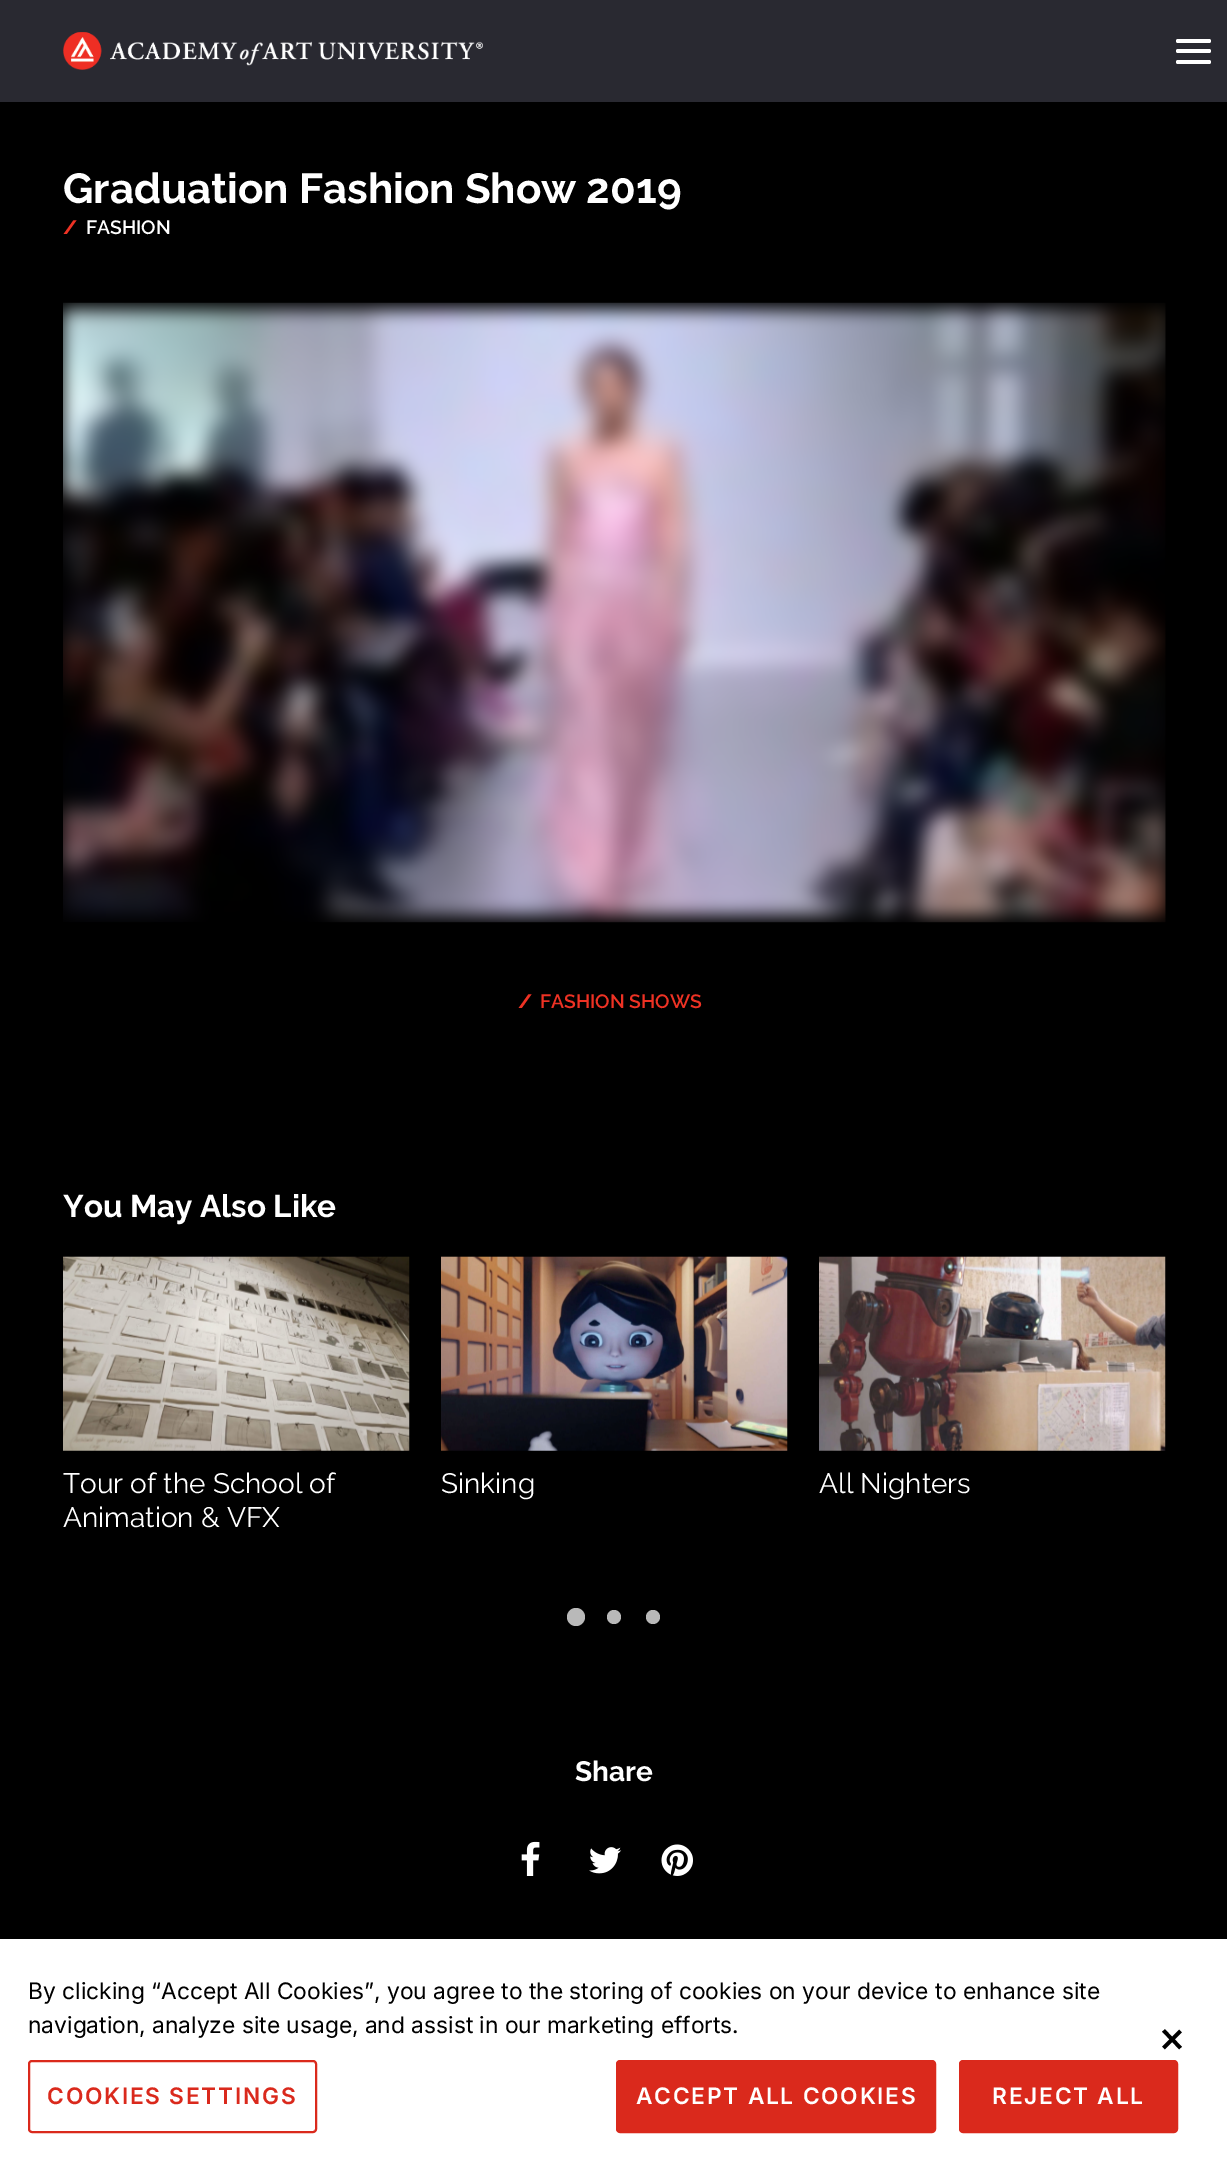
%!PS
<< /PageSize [1227 2168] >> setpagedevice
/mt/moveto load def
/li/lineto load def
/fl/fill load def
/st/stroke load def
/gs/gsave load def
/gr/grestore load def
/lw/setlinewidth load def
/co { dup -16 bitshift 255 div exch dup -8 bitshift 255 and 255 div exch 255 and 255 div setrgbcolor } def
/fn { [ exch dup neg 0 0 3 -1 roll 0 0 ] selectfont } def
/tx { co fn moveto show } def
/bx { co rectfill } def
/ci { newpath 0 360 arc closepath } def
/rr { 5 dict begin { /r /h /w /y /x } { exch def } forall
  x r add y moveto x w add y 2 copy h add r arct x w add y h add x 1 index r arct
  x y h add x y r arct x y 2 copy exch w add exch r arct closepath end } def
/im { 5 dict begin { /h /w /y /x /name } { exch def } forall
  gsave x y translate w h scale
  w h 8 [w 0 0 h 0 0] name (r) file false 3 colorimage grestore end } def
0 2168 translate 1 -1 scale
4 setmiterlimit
0 0 1227 2168 16#000000 bx
0 0 1227 102 16#292931 bx
(media/1.raw) 63 32 420 38 im
16#FFFFFF co
1176 49 35 4 2 rr fl
1176 39 35 4 2 rr fl
1176 60 35 4 2 rr fl
(media/2.raw) 63 302 1103 621 im
(media/3.raw) 63 1256 347 195 im
(media/4.raw) 441 1256 347 195 im
(media/5.raw) 819 1256 347 195 im
16#B9B9B9 co
576 1617 9 ci fl
614 1617 7 ci fl
653 1617 7 ci fl
(media/6.raw) 521 1841 19 35 im
(media/7.raw) 589 1847 33 27 im
(media/8.raw) 661 1844 32 32 im
0 1939 1227 229 16#FFFFFF bx
16#DA291C co
2 lw
29 2061 287 71 3 rr st
617 2061 318 71 3 rr gs fl gr
st
960 2061 217 71 3 rr gs fl gr
st
16#000000 co
3.7 lw
1163.5 2030.5 mt 1180.5 2048 li 1180.5 2031 mt 1163.5 2048 li st
(Graduation Fashion Show 2019) 63 203 /Raleway-Bold 42 16#FFFFFF tx
(/) 63 234 /Raleway-ExtraBold 19.25 16#EE3224 tx
(FASHION) 86 234 /Raleway-SemiBold 19.25 16#FFFFFF tx
(/) 518 1008 /Raleway-ExtraBold 19.25 16#EE3224 tx
(FASHION SHOWS) 540 1008 /Raleway-SemiBold 19.25 16#EE3224 tx
(You May Also Like) 63 1217 /Raleway-Bold 31.5 16#FFFFFF tx
(Tour of the School of) 63 1493 /Raleway-Regular 28 16#FFFFFF tx
(Animation & VFX) 63 1527 /Raleway-Regular 28 16#FFFFFF tx
(Sinking) 441 1493 /Raleway-Regular 28 16#FFFFFF tx
(All Nighters) 819 1493 /Raleway-Regular 28 16#FFFFFF tx
(Share) 575 1781 /Raleway-Bold 28 16#FFFFFF tx
(By clicking “Accept All Cookies”, you agree to the storing of cookies on your device to enhance site) 28 1999 /Inter-Regular 22.75 16#000000 tx
(navigation, analyze site usage, and assist in our marketing efforts.) 28 2033 /Inter-Regular 22.75 16#000000 tx
/Inter-SemiBold 22.75 fn
16#DA291C co
47 2104 mt 1.75 0 (COOKIES SETTINGS) ashow
16#FFFFFF co
636 2104 mt 1.75 0 (ACCEPT ALL COOKIES) ashow
992 2104 mt 1.75 0 (REJECT ALL) ashow
showpage
